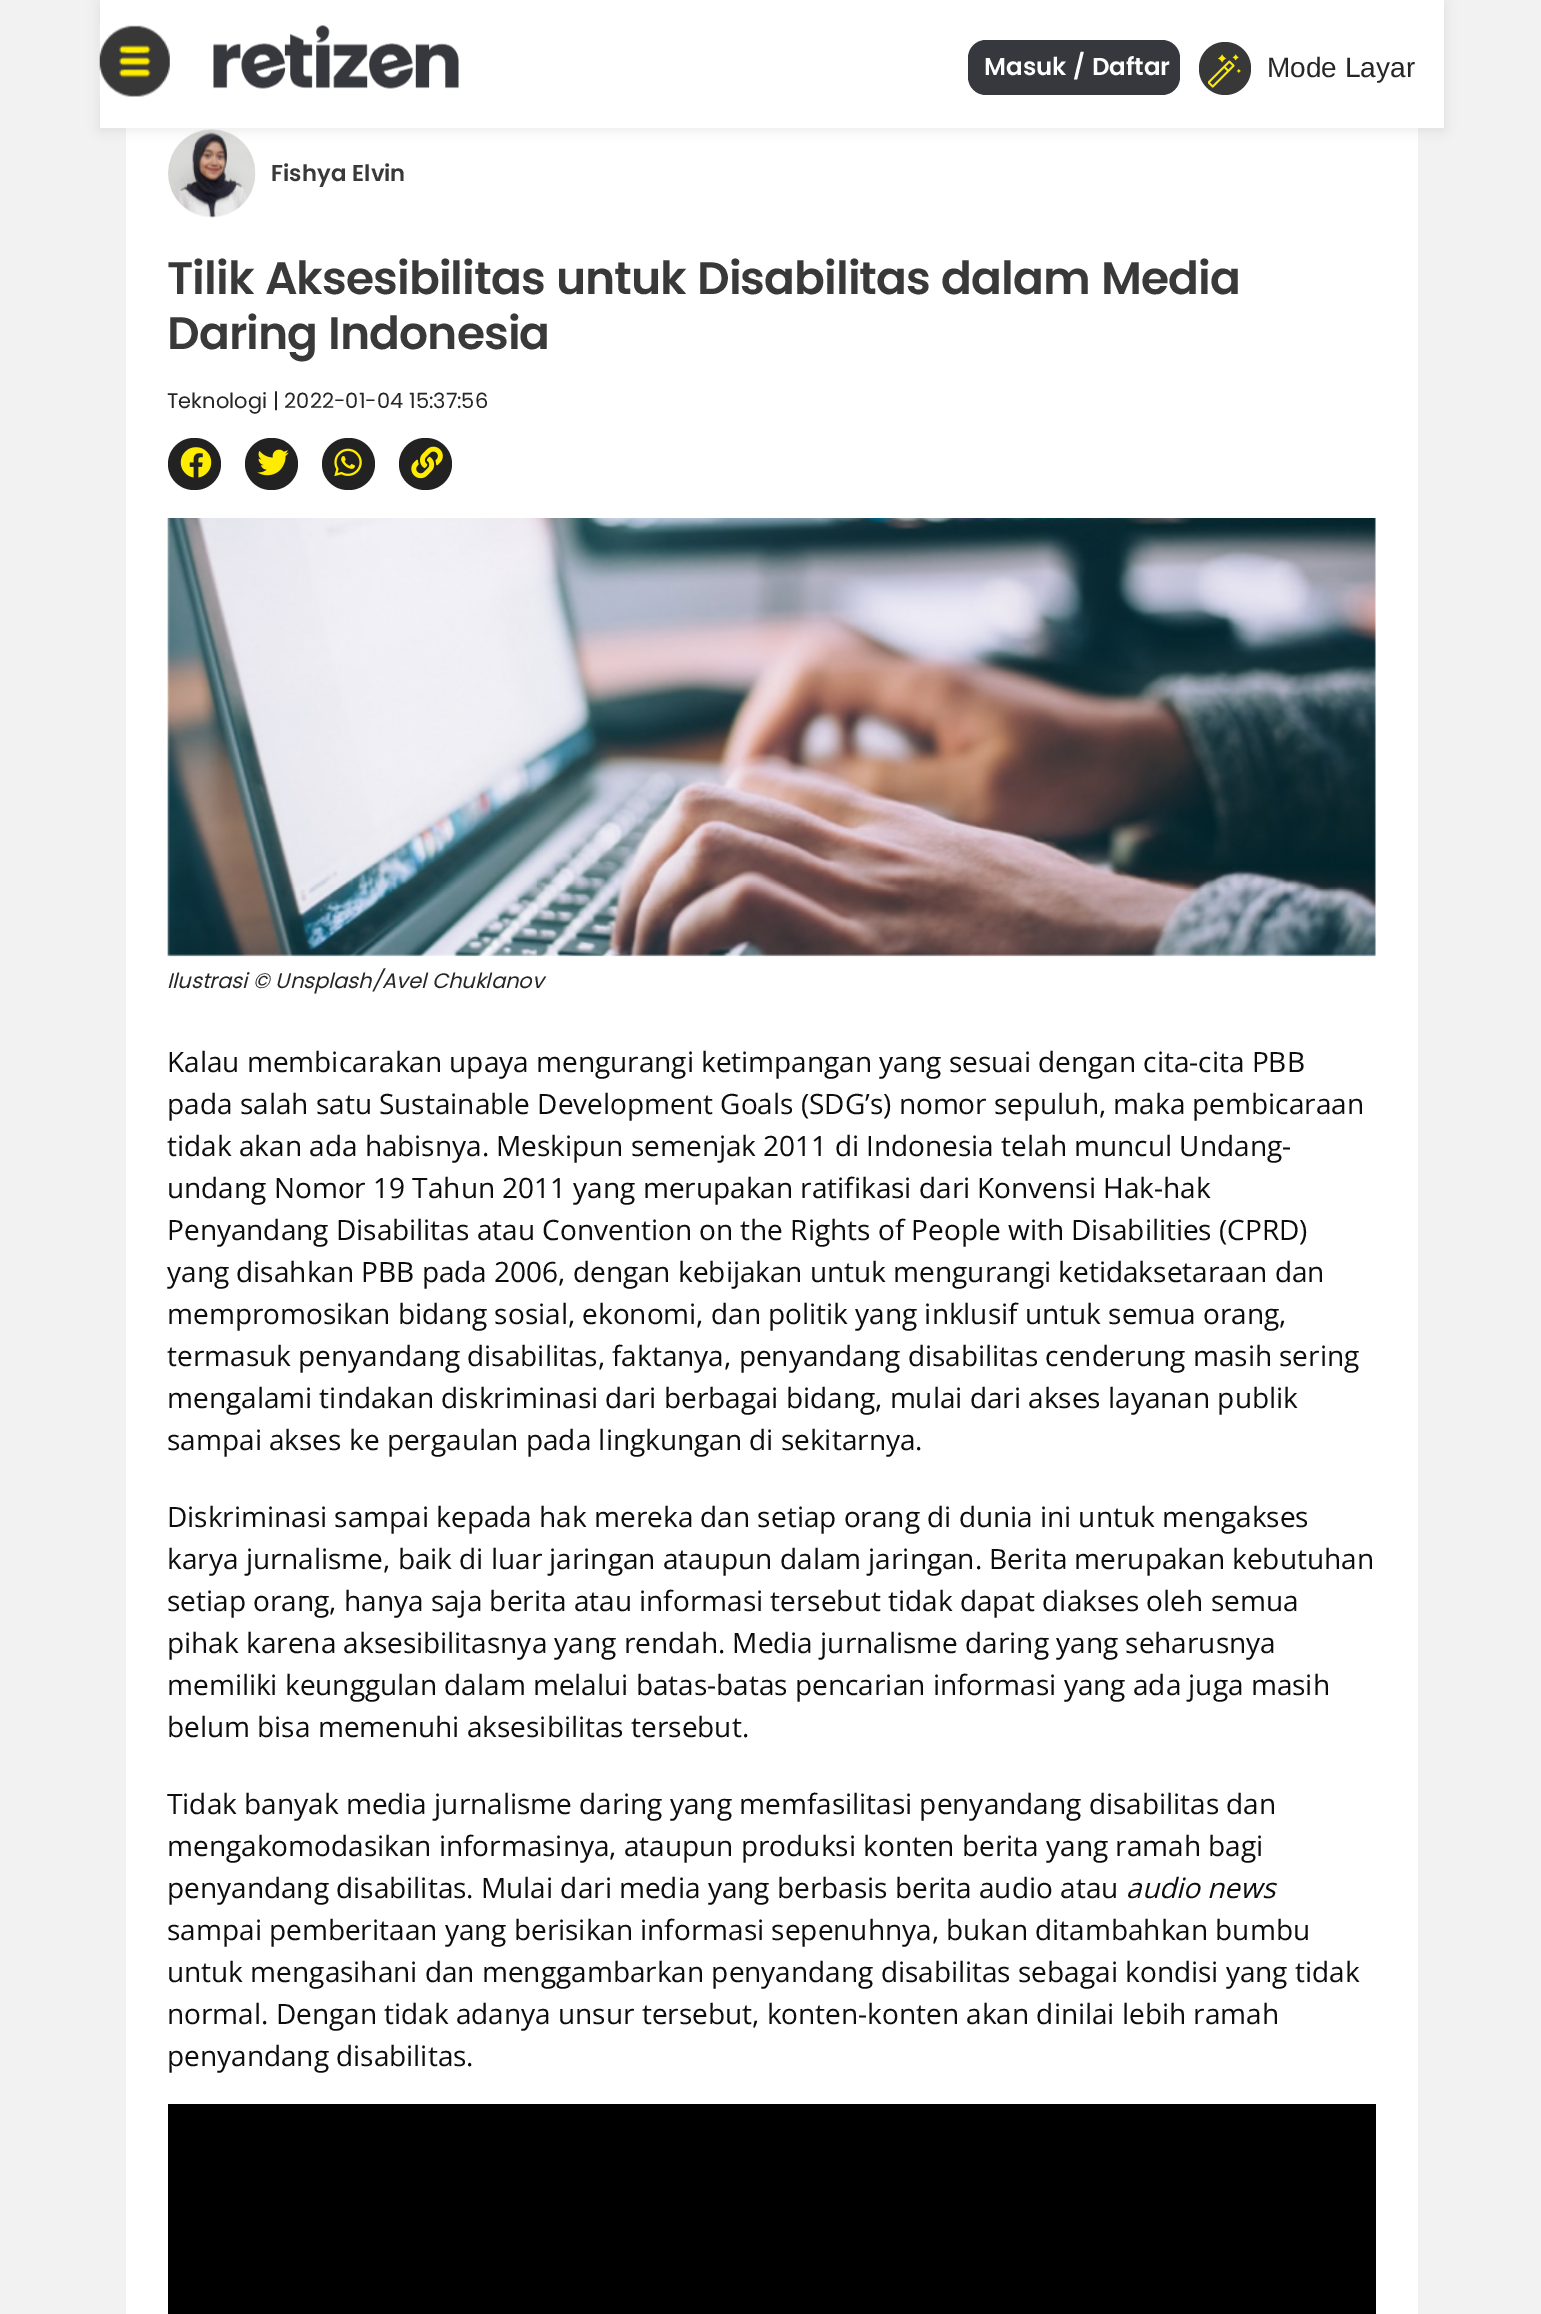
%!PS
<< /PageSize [1541 2314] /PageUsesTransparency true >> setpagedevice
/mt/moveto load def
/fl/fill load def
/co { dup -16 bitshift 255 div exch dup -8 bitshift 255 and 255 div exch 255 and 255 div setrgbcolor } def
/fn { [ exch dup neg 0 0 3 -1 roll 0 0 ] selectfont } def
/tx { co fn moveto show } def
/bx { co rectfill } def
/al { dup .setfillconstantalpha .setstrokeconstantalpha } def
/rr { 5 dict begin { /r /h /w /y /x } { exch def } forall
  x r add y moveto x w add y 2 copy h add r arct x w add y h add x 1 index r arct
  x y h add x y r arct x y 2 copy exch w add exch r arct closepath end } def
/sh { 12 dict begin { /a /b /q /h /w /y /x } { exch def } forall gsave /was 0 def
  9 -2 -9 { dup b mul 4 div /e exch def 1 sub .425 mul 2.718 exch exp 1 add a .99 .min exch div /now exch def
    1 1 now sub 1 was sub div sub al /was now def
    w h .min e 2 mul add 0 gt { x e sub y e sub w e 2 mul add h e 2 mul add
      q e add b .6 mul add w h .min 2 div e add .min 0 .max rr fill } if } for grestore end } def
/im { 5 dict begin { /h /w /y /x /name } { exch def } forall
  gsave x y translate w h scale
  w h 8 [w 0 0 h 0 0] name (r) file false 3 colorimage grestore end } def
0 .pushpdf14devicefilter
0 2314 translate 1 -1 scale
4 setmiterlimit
0 0 1541 2314 16#F2F2F2 bx
126 128 1292 2186 16#FFFFFF bx
(media/4.raw) 168 129 88 89 im
16#000000 co
100 2 1344 128 0 6 .08 sh
100 0 1344 128 16#FFFFFF bx
(media/1.raw) 99 25 71 72 im
(media/2.raw) 213 25 246 64 im
16#36383D co
968 40 212 55 18 rr fl
16#383838 co
1199 42 52 53 26 rr fl
(media/3.raw) 1208 54 33 34 im
16#222222 co
168 438 53 52 26 rr fl
(media/5.raw) 180 447 32 31 im
245 438 53 52 26 rr fl
(media/6.raw) 257 449 32 27 im
322 438 53 52 26 rr fl
(media/7.raw) 334 448 28 29 im
399 438 53 52 26 rr fl
(media/8.raw) 411 446 32 33 im
(media/9.raw) 167 518 1209 439 im
168 2104 1208 210 16#000000 bx
(Masuk / Daftar) 984 75 /Poppins-SemiBold 24.5 16#FFFFFF tx
(Mode Layar) 1267 77 /LiberationSans-Regular 28 16#262626 tx
(Fishya Elvin) 271 181 /Poppins-SemiBold 22.75 16#393939 tx
/Poppins-SemiBold 45.5 fn
167 294 mt -.9 0 (Tilik Aksesibilitas untuk Disabilitas dalam Media) ashow
167 349 mt -.9 0 (Daring Indonesia) ashow
(Teknologi | 2022-01-04 15:37:56) 167 408 /Poppins-Regular 21 16#262626 tx
(Ilustrasi © Unsplash/Avel Chuklanov) 167 988 /Poppins-Italic 21 16#262626 tx
(Kalau membicarakan upaya mengurangi ketimpangan yang sesuai dengan cita-cita PBB) 167 1072 /OpenSans-Regular 28 16#0D0D0D tx
(pada salah satu Sustainable Development Goals \(SDG’s\) nomor sepuluh, maka pembicaraan) 167 1114 /OpenSans-Regular 28 16#0D0D0D tx
(tidak akan ada habisnya. Meskipun semenjak 2011 di Indonesia telah muncul Undang-) 167 1156 /OpenSans-Regular 28 16#0D0D0D tx
(undang Nomor 19 Tahun 2011 yang merupakan ratifikasi dari Konvensi Hak-hak) 167 1198 /OpenSans-Regular 28 16#0D0D0D tx
(Penyandang Disabilitas atau Convention on the Rights of People with Disabilities \(CPRD\)) 167 1240 /OpenSans-Regular 28 16#0D0D0D tx
(yang disahkan PBB pada 2006, dengan kebijakan untuk mengurangi ketidaksetaraan dan) 167 1282 /OpenSans-Regular 28 16#0D0D0D tx
(mempromosikan bidang sosial, ekonomi, dan politik yang inklusif untuk semua orang,) 167 1324 /OpenSans-Regular 28 16#0D0D0D tx
(termasuk penyandang disabilitas, faktanya, penyandang disabilitas cenderung masih sering) 167 1366 /OpenSans-Regular 28 16#0D0D0D tx
(mengalami tindakan diskriminasi dari berbagai bidang, mulai dari akses layanan publik) 167 1408 /OpenSans-Regular 28 16#0D0D0D tx
(sampai akses ke pergaulan pada lingkungan di sekitarnya.) 167 1450 /OpenSans-Regular 28 16#0D0D0D tx
(Diskriminasi sampai kepada hak mereka dan setiap orang di dunia ini untuk mengakses) 167 1527 /OpenSans-Regular 28 16#0D0D0D tx
(karya jurnalisme, baik di luar jaringan ataupun dalam jaringan. Berita merupakan kebutuhan) 167 1569 /OpenSans-Regular 28 16#0D0D0D tx
(setiap orang, hanya saja berita atau informasi tersebut tidak dapat diakses oleh semua) 167 1611 /OpenSans-Regular 28 16#0D0D0D tx
(pihak karena aksesibilitasnya yang rendah. Media jurnalisme daring yang seharusnya) 167 1653 /OpenSans-Regular 28 16#0D0D0D tx
(memiliki keunggulan dalam melalui batas-batas pencarian informasi yang ada juga masih) 167 1695 /OpenSans-Regular 28 16#0D0D0D tx
(belum bisa memenuhi aksesibilitas tersebut.) 167 1737 /OpenSans-Regular 28 16#0D0D0D tx
(Tidak banyak media jurnalisme daring yang memfasilitasi penyandang disabilitas dan) 167 1814 /OpenSans-Regular 28 16#0D0D0D tx
(mengakomodasikan informasinya, ataupun produksi konten berita yang ramah bagi) 167 1856 /OpenSans-Regular 28 16#0D0D0D tx
(penyandang disabilitas. Mulai dari media yang berbasis berita audio atau) 167 1898 /OpenSans-Regular 28 16#0D0D0D tx
(audio news) 1126 1898 /OpenSans-Italic 28 16#0D0D0D tx
(sampai pemberitaan yang berisikan informasi sepenuhnya, bukan ditambahkan bumbu) 167 1940 /OpenSans-Regular 28 16#0D0D0D tx
(untuk mengasihani dan menggambarkan penyandang disabilitas sebagai kondisi yang tidak) 167 1982 /OpenSans-Regular 28 16#0D0D0D tx
(normal. Dengan tidak adanya unsur tersebut, konten-konten akan dinilai lebih ramah) 167 2024 /OpenSans-Regular 28 16#0D0D0D tx
(penyandang disabilitas.) 167 2066 /OpenSans-Regular 28 16#0D0D0D tx
.poppdf14devicefilter showpage
